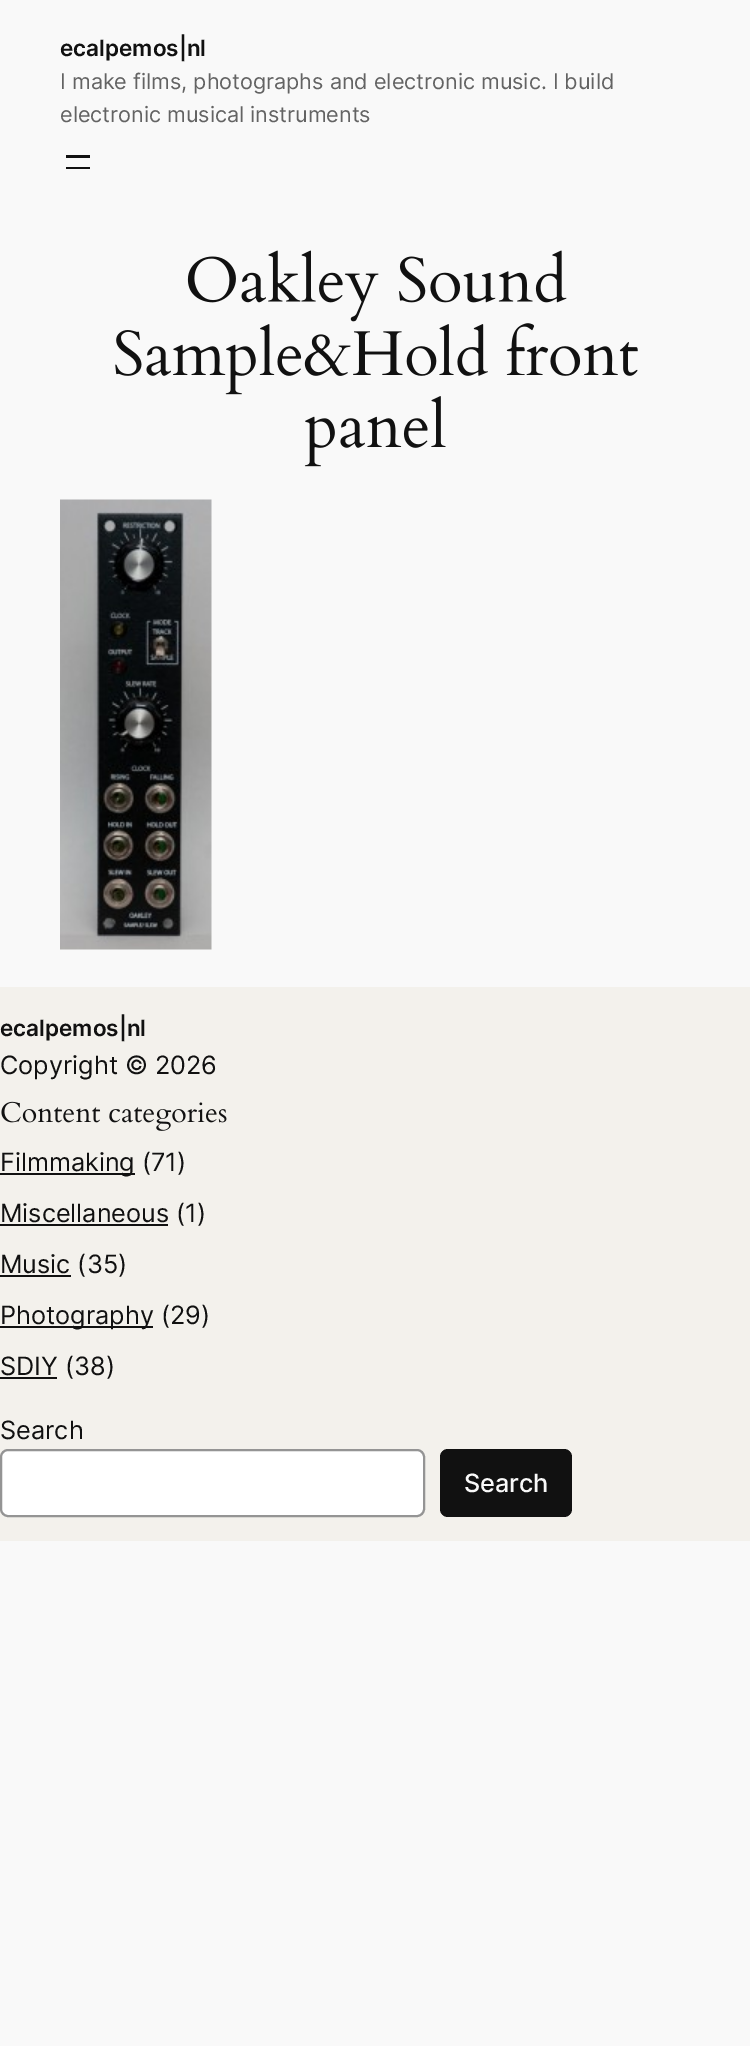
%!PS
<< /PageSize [750 2046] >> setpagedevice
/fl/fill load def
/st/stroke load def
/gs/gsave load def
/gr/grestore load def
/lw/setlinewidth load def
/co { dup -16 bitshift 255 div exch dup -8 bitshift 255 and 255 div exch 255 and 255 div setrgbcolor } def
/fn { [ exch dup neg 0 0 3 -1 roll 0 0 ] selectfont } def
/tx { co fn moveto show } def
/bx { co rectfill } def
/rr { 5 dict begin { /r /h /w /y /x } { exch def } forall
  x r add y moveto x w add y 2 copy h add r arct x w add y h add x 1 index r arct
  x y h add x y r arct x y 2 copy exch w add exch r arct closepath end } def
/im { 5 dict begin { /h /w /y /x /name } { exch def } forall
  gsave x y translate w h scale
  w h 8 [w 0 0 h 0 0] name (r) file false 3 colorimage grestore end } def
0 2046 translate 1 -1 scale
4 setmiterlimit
0 0 750 2046 16#F9F9F9 bx
66 155 24 3 16#111111 bx
66 167 24 2 16#111111 bx
(media/1.raw) 187 250 380 72 im
(media/2.raw) 115 323 523 72 im
(media/3.raw) 304 396 142 71 im
(media/4.raw) 60 499 152 451 im
0 987 750 554 16#F3F1EC bx
(media/5.raw) 1 1101 226 30 im
0 1173 135 2 16#111111 bx
0 1224 168 2 16#111111 bx
0 1275 71 2 16#111111 bx
0 1326 153 2 16#111111 bx
0 1377 57 2 16#111111 bx
16#FFFFFF co
1 1450 423 66 7 rr gs fl gr
16#949494 co
2 lw
st
16#111111 co
440 1449 132 68 8 rr fl
(ecalpemos|nl) 60 56 /Inter-SemiBold 22.5 16#111111 tx
(I make films, photographs and electronic music. I build) 60 89 /Inter-Regular 21.6 16#636363 tx
(electronic musical instruments) 60 122 /Inter-Regular 21.6 16#636363 tx
(ecalpemos|nl) 0 1036 /Inter-SemiBold 22.5 16#111111 tx
(Copyright © 2026) 0 1074 /Inter-Regular 25.25 16#111111 tx
(Filmmaking \(71\)) 0 1171 /Inter-Regular 25.25 16#111111 tx
(Miscellaneous \(1\)) 0 1222 /Inter-Regular 25.25 16#111111 tx
(Music \(35\)) 0 1273 /Inter-Regular 25.25 16#111111 tx
(Photography \(29\)) 0 1324 /Inter-Regular 25.25 16#111111 tx
(SDIY \(38\)) 0 1375 /Inter-Regular 25.25 16#111111 tx
(Search) 0 1439 /Inter-Regular 25.25 16#111111 tx
(Search) 464 1492 /Inter-Medium 25.25 16#F9F9F9 tx
showpage
